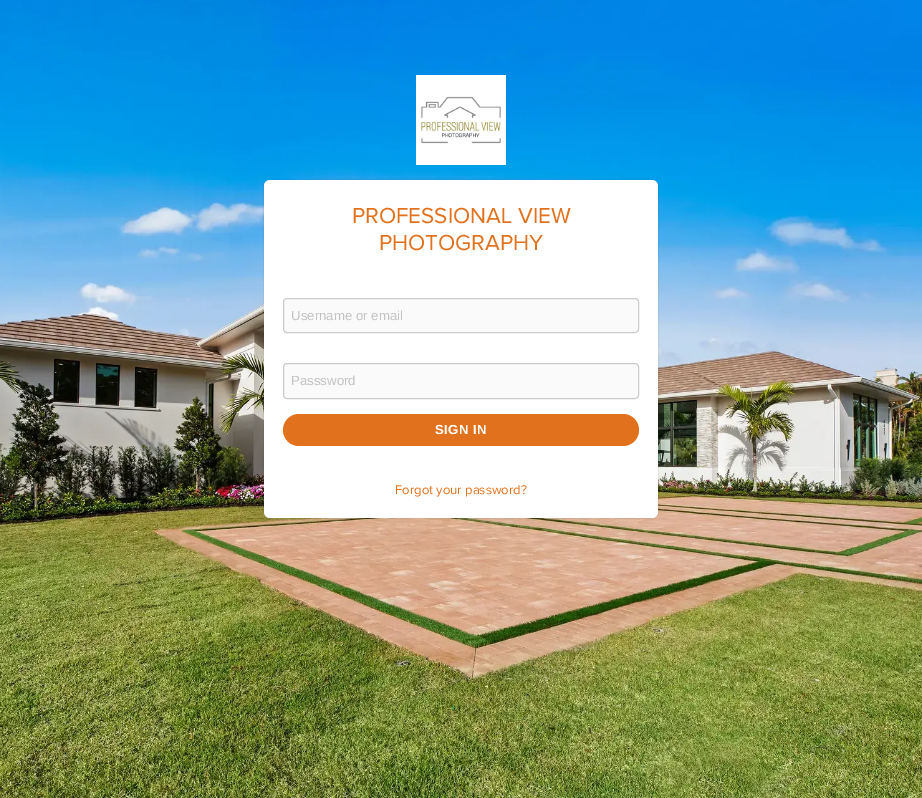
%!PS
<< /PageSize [922 798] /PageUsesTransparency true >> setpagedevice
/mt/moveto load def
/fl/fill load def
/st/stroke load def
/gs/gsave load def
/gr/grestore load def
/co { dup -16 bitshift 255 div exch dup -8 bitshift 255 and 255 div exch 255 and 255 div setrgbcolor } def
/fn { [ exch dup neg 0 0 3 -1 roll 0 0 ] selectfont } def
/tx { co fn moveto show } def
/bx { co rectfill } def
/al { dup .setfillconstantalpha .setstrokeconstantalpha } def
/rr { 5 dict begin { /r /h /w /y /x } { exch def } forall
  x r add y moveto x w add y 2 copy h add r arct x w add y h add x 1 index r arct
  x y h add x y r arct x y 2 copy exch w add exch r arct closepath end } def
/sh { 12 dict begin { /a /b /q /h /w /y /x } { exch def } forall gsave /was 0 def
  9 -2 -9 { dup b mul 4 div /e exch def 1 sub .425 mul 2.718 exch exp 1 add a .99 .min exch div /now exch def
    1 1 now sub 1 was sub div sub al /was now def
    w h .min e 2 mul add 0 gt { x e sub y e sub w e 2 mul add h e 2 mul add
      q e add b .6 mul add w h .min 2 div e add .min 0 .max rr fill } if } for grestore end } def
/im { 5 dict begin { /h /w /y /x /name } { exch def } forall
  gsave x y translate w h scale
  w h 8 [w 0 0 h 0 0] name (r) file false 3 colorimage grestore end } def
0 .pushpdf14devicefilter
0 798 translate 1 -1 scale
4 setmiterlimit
0 0 922 798 16#FFFFFF bx
(media/1.raw) 0 0 922 798 im
(media/2.raw) 416 75 90 90 im
16#000000 co
264 180 394 338 6 1 .15 sh
16#FFFFFF co
264 180 394 338 6 rr fl
16#FAFAFA co
283.5 298.5 355 34 3.5 rr gs fl gr
16#CCCCCC co
st
16#FAFAFA co
283.5 363.5 355 35 3.5 rr gs fl gr
16#CCCCCC co
st
16#E2711E co
283 414 356 32 16 rr fl
(PROFESSIONAL VIEW) 352 223 /ProximaNova-Regular 22.5 16#E2711E tx
(PHOTOGRAPHY) 379 250 /ProximaNova-Regular 22.5 16#E2711E tx
(Username or email) 291 320 /LiberationSans-Regular 13.25 16#C2C2C2 tx
(Passsword) 291 385 /LiberationSans-Regular 13.25 16#C2C2C2 tx
/LiberationSans-Bold 13.1 fn
16#FFFFFF co
435 434 mt .5 0 (SIGN IN) ashow
(Forgot your password?) 395 494 /ProximaNova-Regular 13.1 16#E2711E tx
.poppdf14devicefilter showpage
